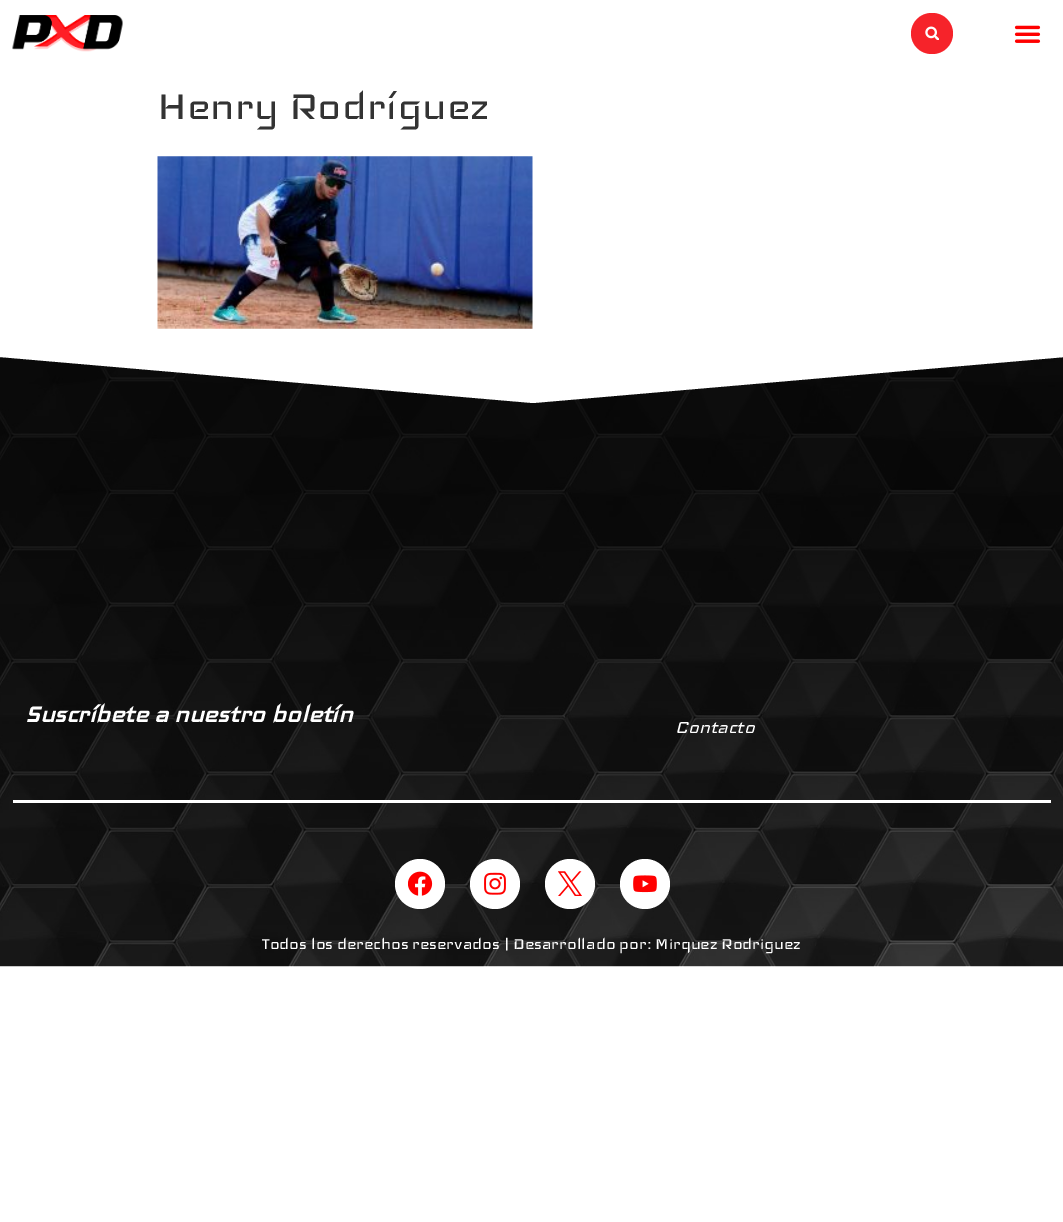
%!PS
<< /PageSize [1063 1222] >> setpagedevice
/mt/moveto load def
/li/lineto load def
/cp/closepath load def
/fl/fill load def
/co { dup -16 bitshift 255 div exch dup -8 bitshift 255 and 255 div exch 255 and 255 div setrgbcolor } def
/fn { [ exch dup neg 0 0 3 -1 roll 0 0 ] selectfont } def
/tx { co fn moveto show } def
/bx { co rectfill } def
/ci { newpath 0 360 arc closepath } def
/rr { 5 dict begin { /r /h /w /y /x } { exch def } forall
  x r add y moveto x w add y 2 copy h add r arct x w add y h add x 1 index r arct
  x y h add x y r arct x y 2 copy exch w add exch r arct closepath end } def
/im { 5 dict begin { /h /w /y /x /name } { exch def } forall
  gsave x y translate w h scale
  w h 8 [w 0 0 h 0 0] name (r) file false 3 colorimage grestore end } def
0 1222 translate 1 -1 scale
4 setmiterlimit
0 0 1063 1222 16#FFFFFF bx
(media/1.raw) 12 15 111 37 im
16#F6232A co
911 13 42 41 20.5 rr fl
(media/2.raw) 925 26 14 14 im
(media/3.raw) 1014 25 27 18 im
(media/4.raw) 157 156 376 173 im
(media/5.raw) 0 357 1063 610 im
16#FFFFFF co
533 403 mt 0 357 li 0 354 li 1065 354 li 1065 357 li cp fl
13 800 1038 3 16#FFFFFF bx
420 884 25 ci fl
(media/6.raw) 408 871 25 25 im
495 884 25 ci fl
(media/7.raw) 484 872 22 23 im
570 884 25 ci fl
(media/8.raw) 558 871 24 25 im
645 884 25 ci fl
(media/9.raw) 633 875 24 18 im
(Henry Rodríguez) 157 119 /Iceland-Regular 50 16#333333 tx
(Suscríbete a nuestro boletín) 25 722 /Iceland-BoldItalic 30 16#FFFFFF tx
(Contacto) 675 733 /Iceland-Italic 22.5 16#FFFFFF tx
(Todos los derechos reservados | Desarrollado por: Mirquez Rodriguez) 262 949 /Iceland-Regular 20 16#FFFFFF tx
showpage
